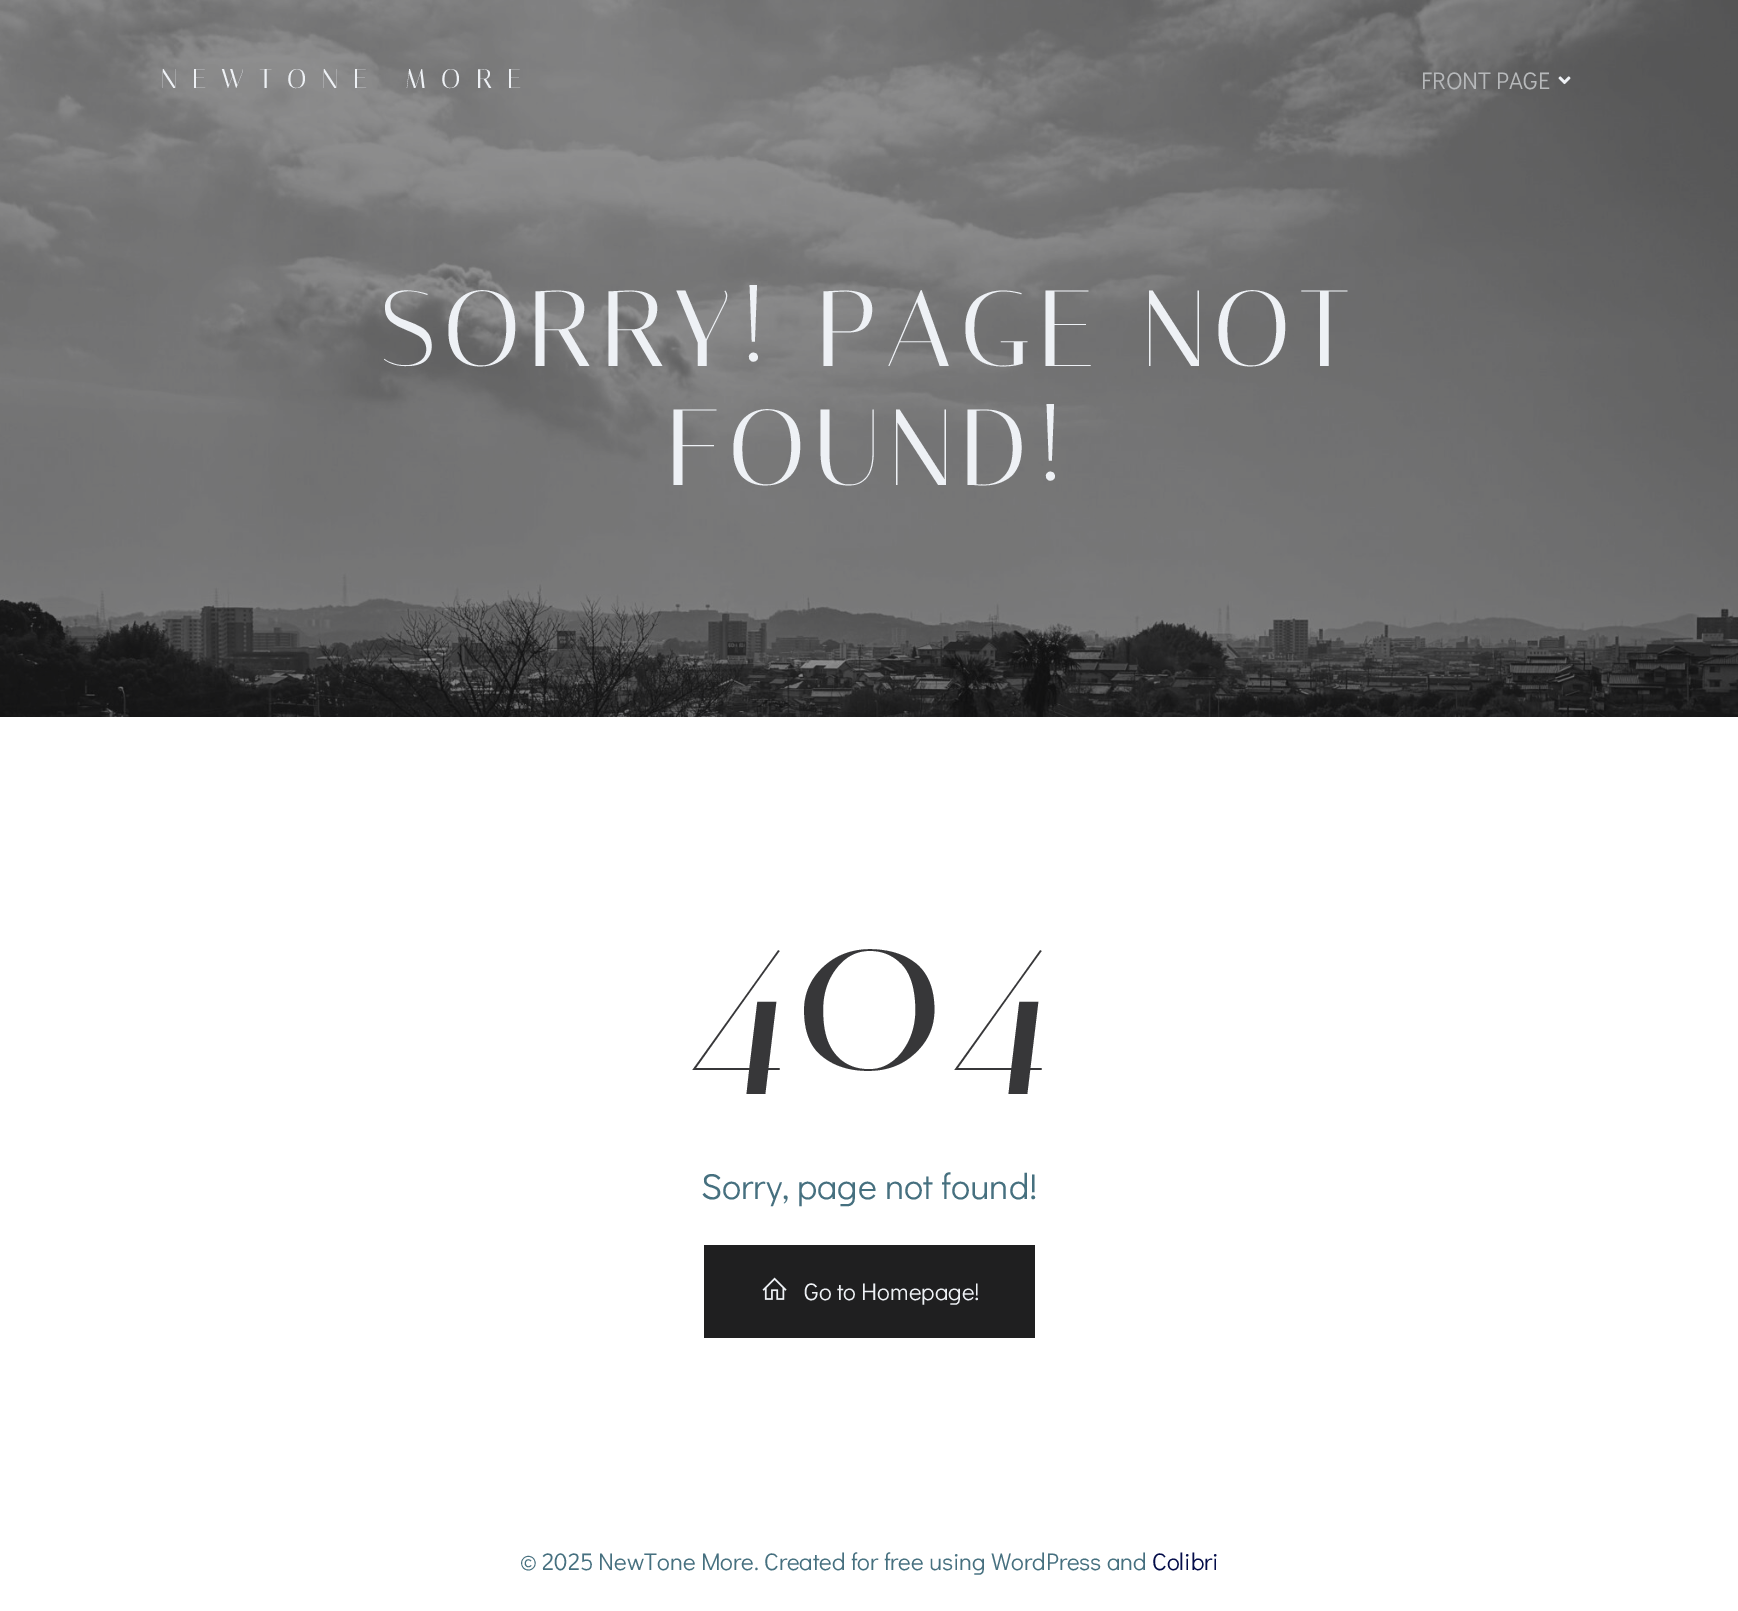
%!PS
<< /PageSize [1738 1611] >> setpagedevice
/mt/moveto load def
/co { dup -16 bitshift 255 div exch dup -8 bitshift 255 and 255 div exch 255 and 255 div setrgbcolor } def
/fn { [ exch dup neg 0 0 3 -1 roll 0 0 ] selectfont } def
/tx { co fn moveto show } def
/bx { co rectfill } def
/im { 5 dict begin { /h /w /y /x /name } { exch def } forall
  gsave x y translate w h scale
  w h 8 [w 0 0 h 0 0] name (r) file false 3 colorimage grestore end } def
0 1611 translate 1 -1 scale
4 setmiterlimit
0 0 1738 1611 16#FFFFFF bx
(media/2.raw) 0 0 1738 717 im
(media/1.raw) 1558 76 13 9 im
704 1245 331 93 16#1F1F20 bx
(media/3.raw) 762 1277 25 23 im
/Italiana-Regular 27 fn
16#EEF1F5 co
161 88 mt 15 0 (NEWTONE MORE) ashow
(FRONT PAGE) 1421 89 /DidactGothic-Regular 24 16#B7B9BB tx
/Italiana-Regular 108 fn
16#EEF1F5 co
380 366 mt 7.5 0 (SORRY! PAGE NOT) ashow
666 485 mt 7.5 0 (FOUND!) ashow
(404) 685 1070 /Italiana-Regular 240 16#373739 tx
(Sorry, page not found!) 701 1199 /DidactGothic-Regular 36 16#46707F tx
(Go to Homepage!) 804 1300 /DidactGothic-Regular 24 16#EEF1F5 tx
(© 2025 NewTone More. Created for free using WordPress and) 520 1570 /DidactGothic-Regular 24 16#46707F tx
(Colibri) 1152 1570 /DidactGothic-Regular 24 16#030C49 tx
showpage
